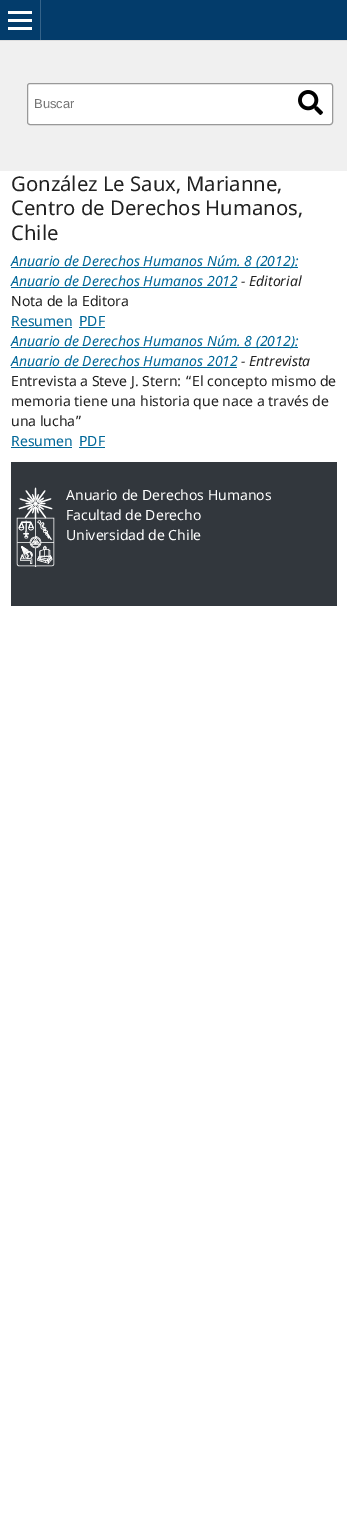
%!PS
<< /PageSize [347 1517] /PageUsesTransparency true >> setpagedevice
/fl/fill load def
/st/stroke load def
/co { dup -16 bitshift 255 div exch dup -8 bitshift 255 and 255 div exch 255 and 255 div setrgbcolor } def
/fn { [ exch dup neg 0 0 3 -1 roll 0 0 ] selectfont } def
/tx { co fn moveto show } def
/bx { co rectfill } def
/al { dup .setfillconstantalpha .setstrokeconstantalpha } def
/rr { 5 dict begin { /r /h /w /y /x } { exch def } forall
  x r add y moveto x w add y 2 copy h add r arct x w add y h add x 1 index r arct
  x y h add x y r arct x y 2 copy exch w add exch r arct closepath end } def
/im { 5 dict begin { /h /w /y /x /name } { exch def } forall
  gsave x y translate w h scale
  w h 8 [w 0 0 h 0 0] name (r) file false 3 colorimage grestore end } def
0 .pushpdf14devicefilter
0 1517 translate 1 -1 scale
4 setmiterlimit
0 0 347 1517 16#FFFFFF bx
0 0 347 40 16#033C6B bx
0 40 347 1 16#DDDDDD bx
40 0 1 40 16#356389 bx
8 27 24 3 16#FFFFFF bx
8 11 24 3 16#FFFFFF bx
8 19 24 3 16#FFFFFF bx
0 41 347 130 16#F0F0F0 bx
16#FFFFFF co
27 83 306 42 3 rr fl
0.4 al
16#000000 co
27.5 83.5 305 41 2.5 rr st
1 al
(media/1.raw) 298 90 25 25 im
11 267 287 1 16#006798 bx
11 287 226 1 16#006798 bx
11 327 61 1 16#006798 bx
79 327 26 1 16#006798 bx
11 347 287 1 16#006798 bx
11 367 226 1 16#006798 bx
11 447 61 1 16#006798 bx
79 447 26 1 16#006798 bx
11 462 326 144 16#32373D bx
(media/2.raw) 16 487 39 80 im
(Buscar) 34 108 /LiberationSans-Regular 13 16#757575 tx
(González Le Saux, Marianne,) 11 191 /NotoSans-Regular 20.25 16#212121 tx
(Centro de Derechos Humanos,) 11 215 /NotoSans-Regular 20.25 16#212121 tx
(Chile) 11 240 /NotoSans-Regular 20.25 16#212121 tx
(Anuario de Derechos Humanos Núm. 8 \(2012\):) 11 266 /NotoSans-Italic 14 16#006798 tx
(Anuario de Derechos Humanos 2012) 11 286 /NotoSans-Italic 14 16#006798 tx
(- Editorial) 241 286 /NotoSans-Italic 14 16#212121 tx
(Nota de la Editora) 11 306 /NotoSans-Regular 14 16#212121 tx
(Resumen) 11 326 /NotoSans-Regular 14 16#006798 tx
(PDF) 79 326 /NotoSans-Regular 14 16#006798 tx
(Anuario de Derechos Humanos Núm. 8 \(2012\):) 11 346 /NotoSans-Italic 14 16#006798 tx
(Anuario de Derechos Humanos 2012) 11 366 /NotoSans-Italic 14 16#006798 tx
(- Entrevista) 241 366 /NotoSans-Italic 14 16#212121 tx
(Entrevista a Steve J. Stern: “El concepto mismo de) 11 386 /NotoSans-Regular 14 16#212121 tx
(memoria tiene una historia que nace a través de) 11 406 /NotoSans-Regular 14 16#212121 tx
(una lucha”) 11 426 /NotoSans-Regular 14 16#212121 tx
(Resumen) 11 446 /NotoSans-Regular 14 16#006798 tx
(PDF) 79 446 /NotoSans-Regular 14 16#006798 tx
(Anuario de Derechos Humanos) 66 500 /NotoSans-Regular 14 16#FFFFFF tx
(Facultad de Derecho) 66 520 /NotoSans-Regular 14 16#FFFFFF tx
(Universidad de Chile) 66 540 /NotoSans-Regular 14 16#FFFFFF tx
.poppdf14devicefilter showpage
